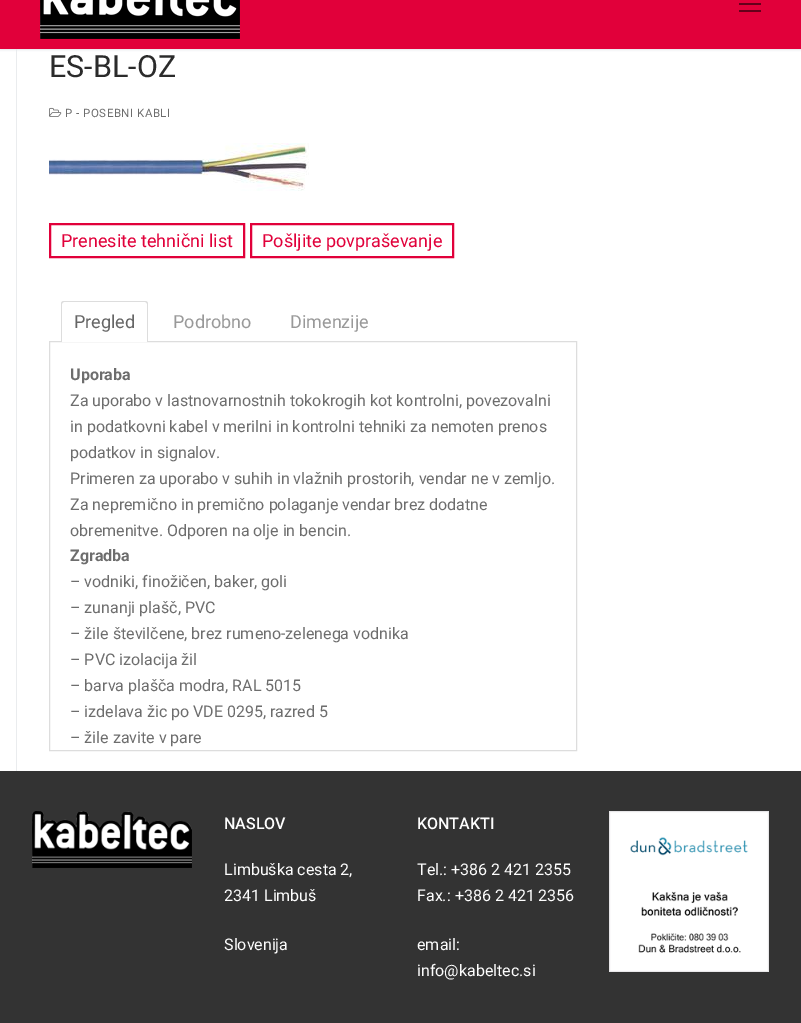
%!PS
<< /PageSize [801 1023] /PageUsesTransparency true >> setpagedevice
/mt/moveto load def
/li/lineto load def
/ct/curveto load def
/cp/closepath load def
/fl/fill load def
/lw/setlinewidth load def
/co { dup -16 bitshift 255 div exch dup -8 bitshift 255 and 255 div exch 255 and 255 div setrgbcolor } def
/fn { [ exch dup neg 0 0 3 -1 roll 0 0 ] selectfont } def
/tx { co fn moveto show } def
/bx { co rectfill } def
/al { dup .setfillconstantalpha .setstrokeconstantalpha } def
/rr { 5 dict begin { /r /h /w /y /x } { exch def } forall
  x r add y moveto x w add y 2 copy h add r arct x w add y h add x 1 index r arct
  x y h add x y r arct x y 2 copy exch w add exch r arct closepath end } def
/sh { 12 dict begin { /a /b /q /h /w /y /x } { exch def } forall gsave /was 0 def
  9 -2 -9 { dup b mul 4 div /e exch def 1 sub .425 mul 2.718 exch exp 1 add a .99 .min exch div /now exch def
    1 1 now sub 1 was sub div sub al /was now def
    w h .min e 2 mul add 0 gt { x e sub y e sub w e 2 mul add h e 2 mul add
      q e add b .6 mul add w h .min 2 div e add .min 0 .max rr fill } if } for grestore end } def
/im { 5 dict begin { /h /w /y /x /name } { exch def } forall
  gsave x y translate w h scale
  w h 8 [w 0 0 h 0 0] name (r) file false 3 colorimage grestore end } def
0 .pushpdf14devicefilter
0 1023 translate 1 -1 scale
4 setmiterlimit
0 0 801 1023 16#FFFFFF bx
16 49 1 722 16#EAECEE bx
16#E1E5EA co
0 -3 801 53 0 1 1 sh
0 0 801 49 16#E1003A bx
(media/1.raw) 40 0 200 39 im
739 3 22 2 16#65001A bx
739 10 22 2 16#65001A bx
(media/2.raw) 49 107 13 10 im
(media/3.raw) 49 143 260 48 im
16#E1003A co
2 lw
50 224 194 33 rectstroke
251 224 202 33 rectstroke
16#DDDDDD co
1 lw
49.5 341.5 527 409 rectstroke
16#FFFFFF co
64 301 mt 145 301 li 146.5 301 148 302.5 148 304 ct 148 342 li 61 342 li 61 304 li 61 302.5 62.5 301 64 301 ct cp fl
16#DDDDDD co
64 301 mt 145 301 li 147 301 148 302 148 304 ct 148 342 li 61 342 li 61 304 li 61 302 62 301 64 301 ct cp 64 302 mt 145 302 li 146 302 147 303 147 304 ct 147 342 li 62 342 li 62 304 li 62 303 63 302 64 302 ct cp eofill
0 771 801 252 16#333333 bx
(media/4.raw) 32 811 160 57 im
(media/5.raw) 609 811 160 161 im
(ES-BL-OZ) 49 77 /Roboto-Regular 30.5 16#2B2B2B tx
/Roboto-Regular 11.5 fn
16#6D6D6D co
65 117 mt .5 0 (P - POSEBNI KABLI) ashow
(Prenesite tehnični list) 61 247 /Roboto-Regular 18 16#E1003A tx
(Pošljite povpraševanje) 262 247 /Roboto-Regular 18 16#E1003A tx
(Pregled) 74 328 /Roboto-Regular 18 16#666666 tx
(Podrobno) 173 328 /Roboto-Regular 18 16#999999 tx
(Dimenzije) 290 328 /Roboto-Regular 18 16#999999 tx
(Uporaba) 70 380 /Roboto-Bold 16 16#6D6D6D tx
(Za uporabo v lastnovarnostnih tokokrogih kot kontrolni, povezovalni) 70 406 /Roboto-Regular 16 16#6D6D6D tx
(in podatkovni kabel v merilni in kontrolni tehniki za nemoten prenos) 70 432 /Roboto-Regular 16 16#6D6D6D tx
(podatkov in signalov.) 70 458 /Roboto-Regular 16 16#6D6D6D tx
(Primeren za uporabo v suhih in vlažnih prostorih, vendar ne v zemljo.) 70 484 /Roboto-Regular 16 16#6D6D6D tx
(Za nepremično in premično polaganje vendar brez dodatne) 70 510 /Roboto-Regular 16 16#6D6D6D tx
(obremenitve. Odporen na olje in bencin.) 70 536 /Roboto-Regular 16 16#6D6D6D tx
(Zgradba) 70 561 /Roboto-Bold 16 16#6D6D6D tx
(– vodniki, finožičen, baker, goli) 70 587 /Roboto-Regular 16 16#6D6D6D tx
(– zunanji plašč, PVC) 70 613 /Roboto-Regular 16 16#6D6D6D tx
(– žile številčene, brez rumeno-zelenega vodnika) 70 639 /Roboto-Regular 16 16#6D6D6D tx
(– PVC izolacija žil) 70 665 /Roboto-Regular 16 16#6D6D6D tx
(– barva plašča modra, RAL 5015) 70 691 /Roboto-Regular 16 16#6D6D6D tx
(– izdelava žic po VDE 0295, razred 5) 70 717 /Roboto-Regular 16 16#6D6D6D tx
(– žile zavite v pare) 70 743 /Roboto-Regular 16 16#6D6D6D tx
(NASLOV) 224 829 /Roboto-Medium 16 16#FDFDFD tx
(Limbuška cesta 2,) 224 875 /Roboto-Regular 16 16#FDFDFD tx
(2341 Limbuš) 224 901 /Roboto-Regular 16 16#FDFDFD tx
(Slovenija) 224 950 /Roboto-Regular 16 16#FDFDFD tx
(KONTAKTI) 417 829 /Roboto-Medium 16 16#FDFDFD tx
(Tel.: +386 2 421 2355) 417 875 /Roboto-Regular 16 16#FDFDFD tx
(Fax.: +386 2 421 2356) 417 901 /Roboto-Regular 16 16#FDFDFD tx
(email:) 417 950 /Roboto-Regular 16 16#FDFDFD tx
(info@kabeltec.si) 417 976 /Roboto-Regular 16 16#FDFDFD tx
.poppdf14devicefilter showpage
